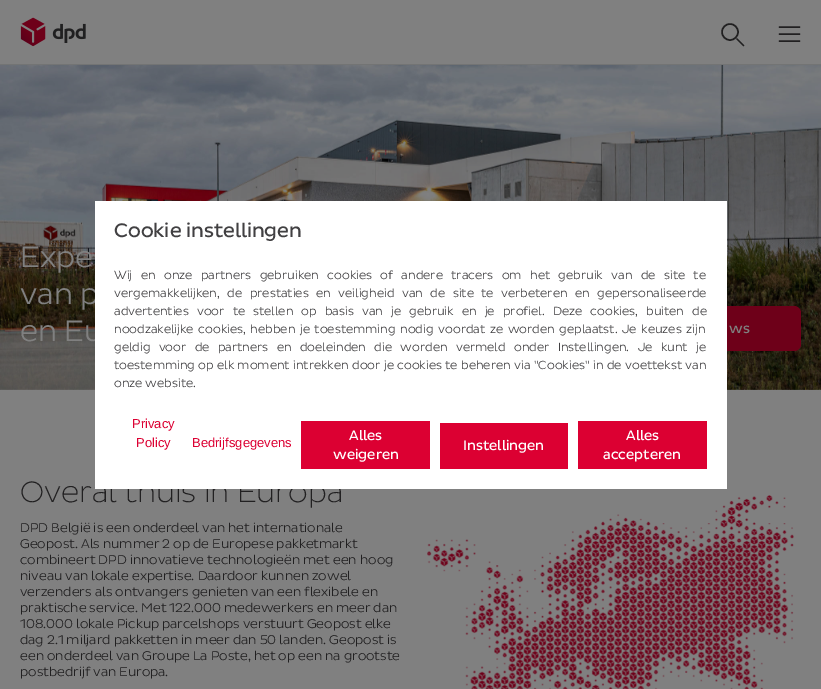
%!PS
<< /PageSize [821 689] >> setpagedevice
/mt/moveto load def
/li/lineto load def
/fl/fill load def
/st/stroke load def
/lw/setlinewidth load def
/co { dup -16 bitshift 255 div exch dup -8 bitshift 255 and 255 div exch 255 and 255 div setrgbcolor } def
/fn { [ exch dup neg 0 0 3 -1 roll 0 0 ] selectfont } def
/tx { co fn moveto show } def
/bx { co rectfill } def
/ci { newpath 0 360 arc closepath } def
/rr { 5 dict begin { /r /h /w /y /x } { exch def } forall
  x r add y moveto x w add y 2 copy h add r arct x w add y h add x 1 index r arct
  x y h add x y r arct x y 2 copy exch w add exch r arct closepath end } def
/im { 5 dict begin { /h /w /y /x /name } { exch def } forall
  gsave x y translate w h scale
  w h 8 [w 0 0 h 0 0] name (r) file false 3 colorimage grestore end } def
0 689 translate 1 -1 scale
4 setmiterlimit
0 0 821 689 16#808080 bx
0 64 821 1 16#737474 bx
(media/1.raw) 20 17 66 30 im
16#212021 co
1.5 lw
730 32 8 ci st
1.4 lw
1 setlinecap
1 setlinejoin
737 39 mt 743.5 45.5 li st
1.5 lw
0 setlinejoin
779.5 27 mt 799.5 27 li 779.5 34 mt 799.5 34 li 779.5 41 mt 799.5 41 li st
(media/2.raw) 0 65 821 325 im
16#6E0019 co
618 306 183 45 7 rr fl
(media/3.raw) 427 495 367 194 im
(Expe) 20 267 /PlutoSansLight-Regular 30 16#808080 tx
(van p) 20 304 /PlutoSansLight-Regular 30 16#808080 tx
(en Eu) 20 341 /PlutoSansLight-Regular 30 16#808080 tx
(ws) 729 333 /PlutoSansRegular-Regular 14 16#808080 tx
(Overal thuis in Europa) 20 502 /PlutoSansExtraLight-Light 30 16#212021 tx
95 201 632 288 16#FFFFFF bx
(onze website.) 114 387 /PlutoSansLight-Regular 12 16#414042 tx
114 369 mt .5 0 32 (toestemming op elk moment intrekken door je cookies te beheren via "Cookies" in de voettekst van) widthshow
114 351 mt 5.5 0 32 (geldig voor de partners en doeleinden die worden vermeld onder Instellingen. Je kunt je) widthshow
114 333 mt 1.75 0 32 (noodzakelijke cookies, hebben je toestemming nodig voordat ze worden geplaatst. Je keuzes zijn) widthshow
114 315 mt 5.25 0 32 (advertenties voor te stellen op basis van je gebruik en je profiel. Deze cookies, buiten de) widthshow
114 297 mt 4.6 0 32 (vergemakkelijken, de prestaties en veiligheid van de site te verbeteren en gepersonaliseerde) widthshow
114 279 mt 5.5 0 32 (Wij en onze partners gebruiken cookies of andere tracers om het gebruik van de site te) widthshow
(Bedrijfsgegevens) 192 447 /LiberationSans-Regular 13 16#DC0032 tx
(Policy) 136 447 /LiberationSans-Regular 13 16#DC0032 tx
(Privacy) 132 428 /LiberationSans-Regular 13 16#DC0032 tx
301 421 129 48 16#DC0032 bx
(weigeren) 333 459 /PlutoSansRegular-Regular 14 16#FFFFFF tx
(Alles) 349 440 /PlutoSansRegular-Regular 14 16#FFFFFF tx
440 423 128 46 16#DC0032 bx
(Instellingen) 463 450 /PlutoSansRegular-Regular 14 16#FFFFFF tx
578 421 129 48 16#DC0032 bx
(accepteren) 603 459 /PlutoSansRegular-Regular 14 16#FFFFFF tx
(Alles) 626 440 /PlutoSansRegular-Regular 14 16#FFFFFF tx
(Cookie instellingen) 114 237 /PlutoSansRegular-Regular 20 16#414042 tx
(DPD België is een onderdeel van het internationale) 20 532 /PlutoSansLight-Regular 13 16#212021 tx
(Geopost. Als nummer 2 op de Europese pakketmarkt) 20 548 /PlutoSansLight-Regular 13 16#212021 tx
(combineert DPD innovatieve technologieën met een hoog) 20 564 /PlutoSansLight-Regular 13 16#212021 tx
(niveau van lokale expertise. Daardoor kunnen zowel) 20 580 /PlutoSansLight-Regular 13 16#212021 tx
(verzenders als ontvangers genieten van een flexibele en) 20 596 /PlutoSansLight-Regular 13 16#212021 tx
(praktische service. Met 122.000 medewerkers en meer dan) 20 612 /PlutoSansLight-Regular 13 16#212021 tx
(108.000 lokale Pickup parcelshops verstuurt Geopost elke) 20 628 /PlutoSansLight-Regular 13 16#212021 tx
(dag 2.1 miljard pakketten in meer dan 50 landen. Geopost is) 20 644 /PlutoSansLight-Regular 13 16#212021 tx
(een onderdeel van Groupe La Poste, het op een na grootste) 20 660 /PlutoSansLight-Regular 13 16#212021 tx
(postbedrijf van Europa.) 20 676 /PlutoSansLight-Regular 13 16#212021 tx
showpage
